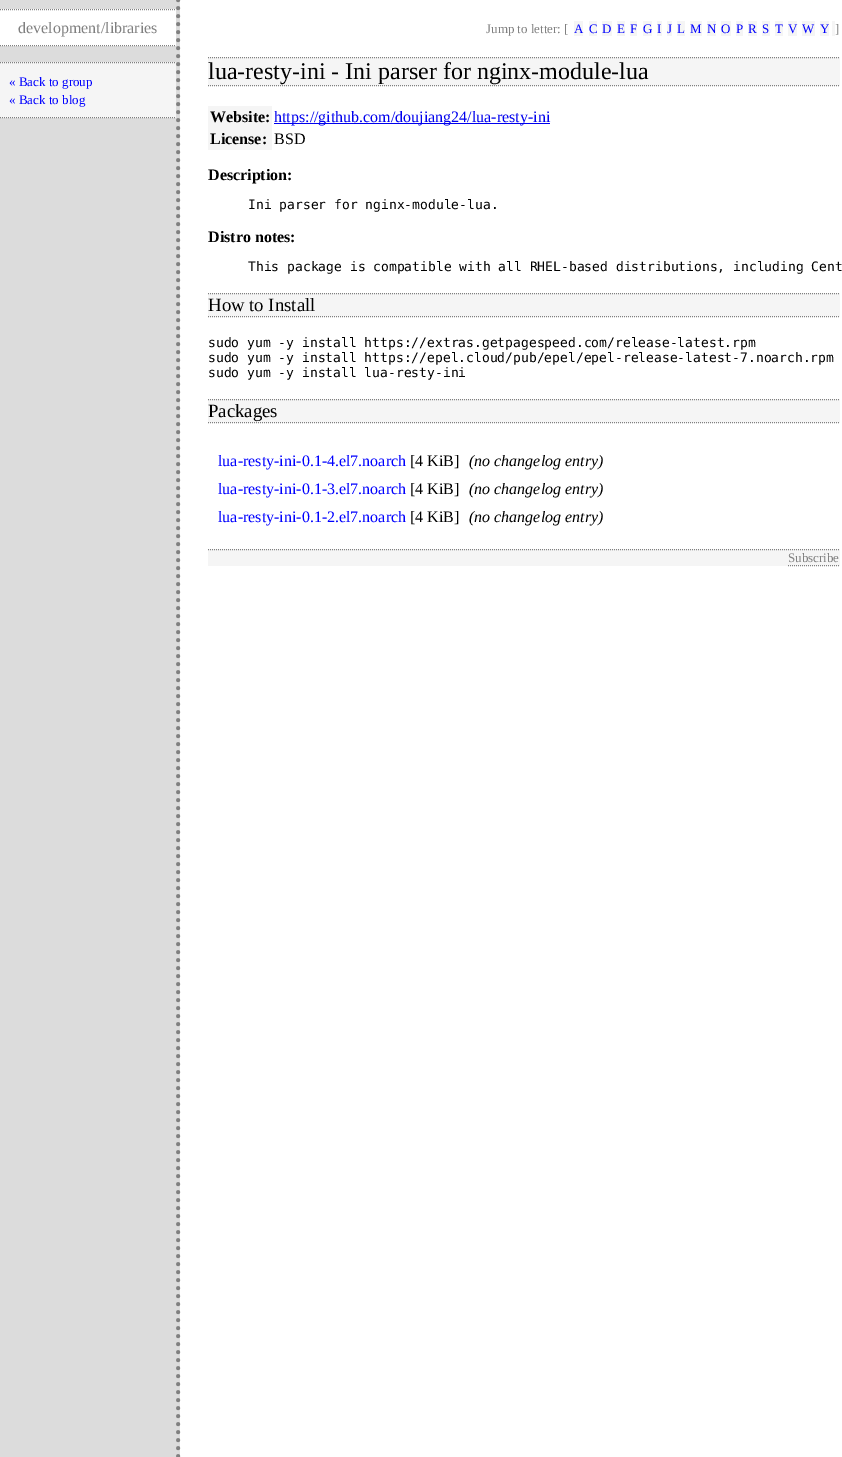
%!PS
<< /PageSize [842 1457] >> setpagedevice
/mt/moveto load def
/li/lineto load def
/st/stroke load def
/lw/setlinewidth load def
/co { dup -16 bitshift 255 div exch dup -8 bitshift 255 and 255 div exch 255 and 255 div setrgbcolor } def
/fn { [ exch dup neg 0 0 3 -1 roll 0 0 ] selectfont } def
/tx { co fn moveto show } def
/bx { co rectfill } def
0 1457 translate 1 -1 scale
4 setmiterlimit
0 0 842 1457 16#FFFFFF bx
0 0 180 1457 16#DCDCDC bx
16#808080 co
4 lw
1 setlinecap
[0 8] 0 setdash
178 0 mt 178 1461 li st
0 9 176 37 16#FFFFFF bx
16#808080 co
1 lw
0 setlinecap
[1 1] 0 setdash
0 9.5 mt 176 9.5 li st
0 45.5 mt 176 45.5 li st
0 62 176 56 16#F5F5F5 bx
16#808080 co
0 62.5 mt 176 62.5 li st
0 117.5 mt 176 117.5 li st
574 21 9 15 16#F5F5F5 bx
589 21 8 15 16#F5F5F5 bx
602 21 10 15 16#F5F5F5 bx
617 21 8 15 16#F5F5F5 bx
630 21 7 15 16#F5F5F5 bx
643 21 9 15 16#F5F5F5 bx
657 21 5 15 16#F5F5F5 bx
667 21 5 15 16#F5F5F5 bx
677 21 8 15 16#F5F5F5 bx
690 21 12 15 16#F5F5F5 bx
707 21 9 15 16#F5F5F5 bx
721 21 10 15 16#F5F5F5 bx
736 21 7 15 16#F5F5F5 bx
748 21 9 15 16#F5F5F5 bx
762 21 8 15 16#F5F5F5 bx
775 21 8 15 16#F5F5F5 bx
788 21 9 15 16#F5F5F5 bx
802 21 13 15 16#F5F5F5 bx
820 21 9 15 16#F5F5F5 bx
832 21 3 15 16#F5F5F5 bx
208 57 632 29 16#F5F5F5 bx
16#808080 co
208 57.5 mt 840 57.5 li st
208 85.5 mt 840 85.5 li st
208 106 64 44 16#F5F5F5 bx
274 123 276 1 16#0000EE bx
208 293 632 24 16#F5F5F5 bx
16#808080 co
208 293.5 mt 840 293.5 li st
208 316.5 mt 840 316.5 li st
208 399 632 24 16#F5F5F5 bx
16#808080 co
208 399.5 mt 840 399.5 li st
208 422.5 mt 840 422.5 li st
208 549 632 17 16#F5F5F5 bx
16#808080 co
208 549.5 mt 840 549.5 li st
788 565.5 mt 840 565.5 li st
(development/libraries) 18 33 /LiberationSerif-Regular 16 16#808080 tx
(« Back to group) 9 86 /LiberationSerif-Regular 13 16#0000FF tx
(« Back to blog) 9 104 /LiberationSerif-Regular 13 16#0000FF tx
(Jump to letter: [) 486 33 /LiberationSerif-Regular 13 16#808080 tx
(A) 574 33 /LiberationSerif-Regular 13 16#0000FF tx
(C) 589 33 /LiberationSerif-Regular 13 16#0000FF tx
(D) 602 33 /LiberationSerif-Regular 13 16#0000FF tx
(E) 617 33 /LiberationSerif-Regular 13 16#0000FF tx
(F) 630 33 /LiberationSerif-Regular 13 16#0000FF tx
(G) 643 33 /LiberationSerif-Regular 13 16#0000FF tx
(I) 657 33 /LiberationSerif-Regular 13 16#0000FF tx
(J) 667 33 /LiberationSerif-Regular 13 16#0000FF tx
(L) 677 33 /LiberationSerif-Regular 13 16#0000FF tx
(M) 690 33 /LiberationSerif-Regular 13 16#0000FF tx
(N) 707 33 /LiberationSerif-Regular 13 16#0000FF tx
(O) 721 33 /LiberationSerif-Regular 13 16#0000FF tx
(P) 736 33 /LiberationSerif-Regular 13 16#0000FF tx
(R) 748 33 /LiberationSerif-Regular 13 16#0000FF tx
(S) 762 33 /LiberationSerif-Regular 13 16#0000FF tx
(T) 775 33 /LiberationSerif-Regular 13 16#0000FF tx
(V) 788 33 /LiberationSerif-Regular 13 16#0000FF tx
(W) 802 33 /LiberationSerif-Regular 13 16#0000FF tx
(Y) 820 33 /LiberationSerif-Regular 13 16#0000FF tx
(]) 835 33 /LiberationSerif-Regular 13 16#808080 tx
(lua-resty-ini - Ini parser for nginx-module-lua) 208 79 /LiberationSerif-Regular 24 16#000000 tx
(Website:) 210 122 /LiberationSerif-Bold 16 16#000000 tx
(https://github.com/doujiang24/lua-resty-ini) 274 122 /LiberationSerif-Regular 16 16#0000EE tx
(License:) 210 144 /LiberationSerif-Bold 16 16#000000 tx
(BSD) 274 144 /LiberationSerif-Regular 16 16#000000 tx
(Description:) 208 180 /LiberationSerif-Bold 16 16#000000 tx
(Ini parser for nginx-module-lua.) 248 209 /DejaVuSansMono-Regular 13 16#000000 tx
(Distro notes:) 208 242 /LiberationSerif-Bold 16 16#000000 tx
(This package is compatible with all RHEL-based distributions, including Cent) 248 271 /DejaVuSansMono-Regular 13 16#000000 tx
(How to Install) 208 311 /LiberationSerif-Regular 18.75 16#000000 tx
(sudo yum -y install https://extras.getpagespeed.com/release-latest.rpm) 208 347 /DejaVuSansMono-Regular 13 16#000000 tx
(sudo yum -y install https://epel.cloud/pub/epel/epel-release-latest-7.noarch.rpm) 208 362 /DejaVuSansMono-Regular 13 16#000000 tx
(sudo yum -y install lua-resty-ini) 208 377 /DejaVuSansMono-Regular 13 16#000000 tx
(Packages) 208 417 /LiberationSerif-Regular 18.75 16#000000 tx
(lua-resty-ini-0.1-4.el7.noarch) 218 466 /LiberationSerif-Regular 16 16#0000FF tx
([4 KiB]) 410 466 /LiberationSerif-Regular 16 16#000000 tx
(\(no changelog entry\)) 469 466 /LiberationSerif-Italic 16 16#000000 tx
(lua-resty-ini-0.1-3.el7.noarch) 218 494 /LiberationSerif-Regular 16 16#0000FF tx
([4 KiB]) 410 494 /LiberationSerif-Regular 16 16#000000 tx
(\(no changelog entry\)) 469 494 /LiberationSerif-Italic 16 16#000000 tx
(lua-resty-ini-0.1-2.el7.noarch) 218 522 /LiberationSerif-Regular 16 16#0000FF tx
([4 KiB]) 410 522 /LiberationSerif-Regular 16 16#000000 tx
(\(no changelog entry\)) 469 522 /LiberationSerif-Italic 16 16#000000 tx
(Subscribe) 788 562 /LiberationSerif-Regular 13 16#808080 tx
showpage
